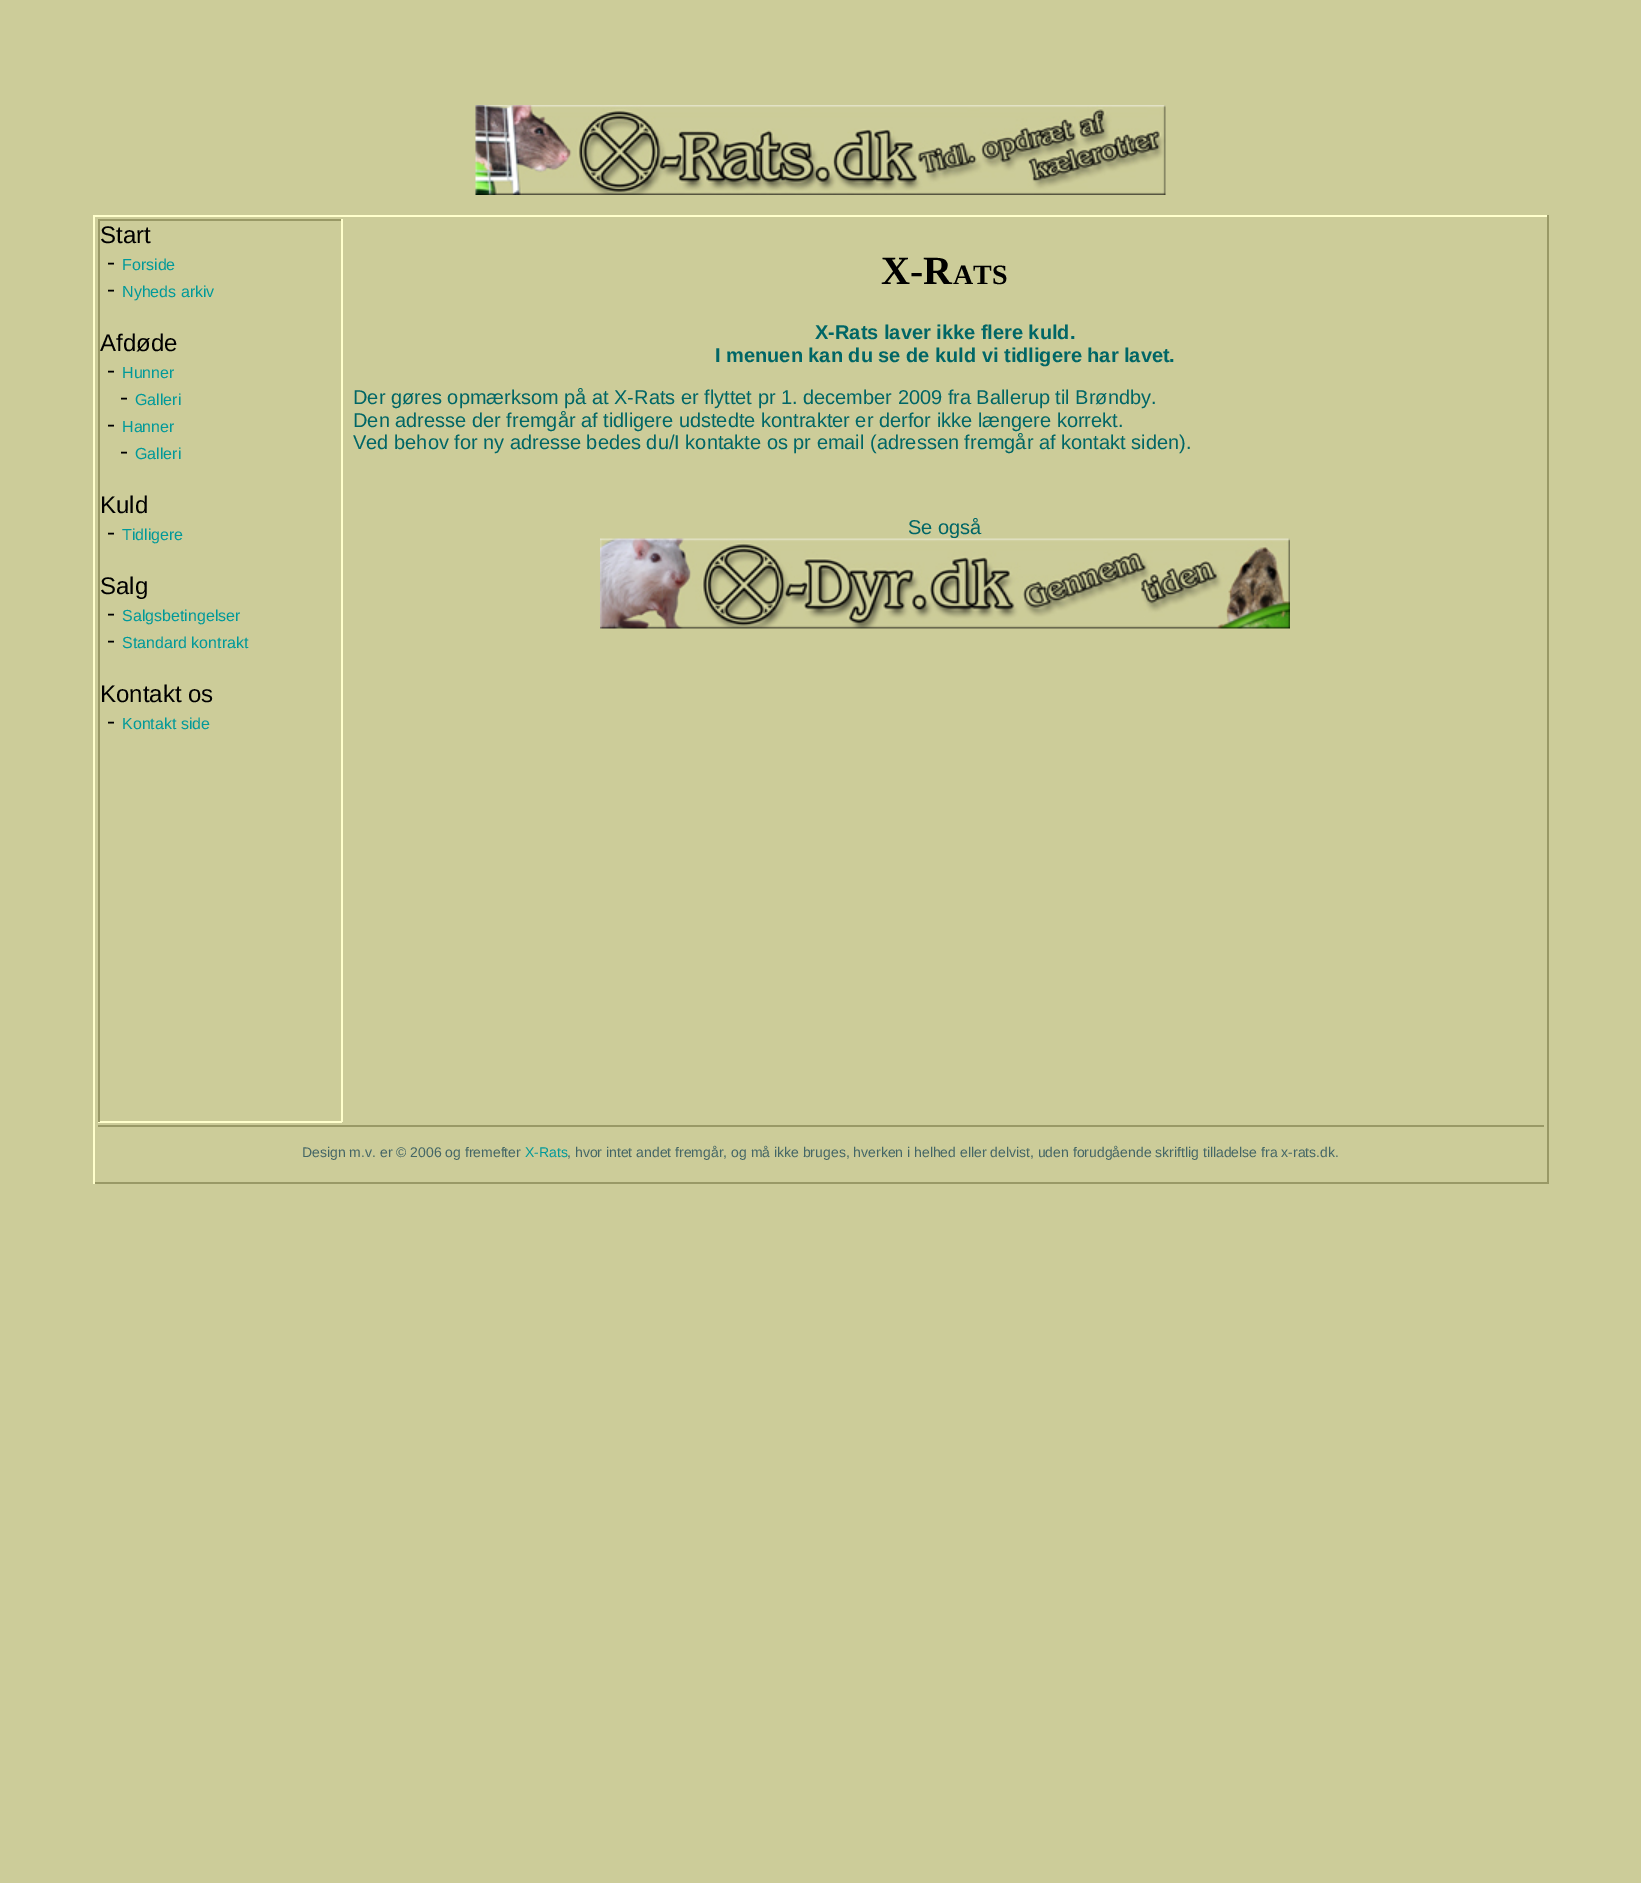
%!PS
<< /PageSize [1641 1883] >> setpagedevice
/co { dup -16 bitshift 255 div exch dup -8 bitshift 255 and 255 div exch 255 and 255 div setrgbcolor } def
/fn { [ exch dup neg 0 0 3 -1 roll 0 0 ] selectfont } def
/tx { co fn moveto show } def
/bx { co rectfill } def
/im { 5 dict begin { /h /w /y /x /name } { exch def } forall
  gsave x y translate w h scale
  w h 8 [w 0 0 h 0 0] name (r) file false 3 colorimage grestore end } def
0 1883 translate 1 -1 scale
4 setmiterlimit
0 0 1641 1883 16#CCCC99 bx
(media/1.raw) 475 105 691 90 im
93 215 1455 2 16#FFFFCC bx
1547 215 2 969 16#999966 bx
93 1182 1455 2 16#999966 bx
93 215 2 969 16#FFFFCC bx
98 219 244 2 16#999966 bx
341 219 2 903 16#FFFFCC bx
98 1121 244 2 16#FFFFCC bx
98 219 2 903 16#999966 bx
98 1125 1446 2 16#999966 bx
(Start) 100 243 /LiberationSans-Regular 24 16#000000 tx
(-) 107 270 /LiberationSans-Regular 24 16#000000 tx
(Forside) 122 270 /LiberationSans-Regular 16 16#009999 tx
(-) 107 297 /LiberationSans-Regular 24 16#000000 tx
(Nyheds arkiv) 122 297 /LiberationSans-Regular 16 16#009999 tx
(Afdøde) 100 351 /LiberationSans-Regular 24 16#000000 tx
(-) 107 378 /LiberationSans-Regular 24 16#000000 tx
(Hunner) 122 378 /LiberationSans-Regular 16 16#009999 tx
(-) 120 405 /LiberationSans-Regular 24 16#000000 tx
(Galleri) 135 405 /LiberationSans-Regular 16 16#009999 tx
(-) 107 432 /LiberationSans-Regular 24 16#000000 tx
(Hanner) 122 432 /LiberationSans-Regular 16 16#009999 tx
(-) 120 459 /LiberationSans-Regular 24 16#000000 tx
(Galleri) 135 459 /LiberationSans-Regular 16 16#009999 tx
(Kuld) 100 513 /LiberationSans-Regular 24 16#000000 tx
(-) 107 540 /LiberationSans-Regular 24 16#000000 tx
(Tidligere) 122 540 /LiberationSans-Regular 16 16#009999 tx
(Salg) 100 594 /LiberationSans-Regular 24 16#000000 tx
(-) 107 621 /LiberationSans-Regular 24 16#000000 tx
(Salgsbetingelser) 122 621 /LiberationSans-Regular 16 16#009999 tx
(-) 107 648 /LiberationSans-Regular 24 16#000000 tx
(Standard kontrakt) 122 648 /LiberationSans-Regular 16 16#009999 tx
(Kontakt os) 100 702 /LiberationSans-Regular 24 16#000000 tx
(-) 107 729 /LiberationSans-Regular 24 16#000000 tx
(Kontakt side) 122 729 /LiberationSans-Regular 16 16#009999 tx
(X-R) 881 284 /LiberationSerif-Bold 40 16#000000 tx
(ATS) 953 284 /LiberationSerif-Bold 28 16#000000 tx
(X-Rats laver ikke flere kuld.) 815 339 /LiberationSans-Bold 20 16#006666 tx
(I menuen kan du se de kuld vi tidligere har lavet.) 715 362 /LiberationSans-Bold 20 16#006666 tx
(Der gøres opmærksom på at X-Rats er flyttet pr 1. december 2009 fra Ballerup til Brøndby.) 353 404 /LiberationSans-Regular 20 16#006666 tx
(Den adresse der fremgår af tidligere udstedte kontrakter er derfor ikke længere korrekt.) 353 427 /LiberationSans-Regular 20 16#006666 tx
(Ved behov for ny adresse bedes du/I kontakte os pr email \(adressen fremgår af kontakt siden\).) 353 449 /LiberationSans-Regular 20 16#006666 tx
(Se også) 908 534 /LiberationSans-Regular 20 16#006666 tx
(media/2.raw) 600 538 690 91 im
(Design m.v. er © 2006 og fremefter) 302 1157 /LiberationSans-Regular 14 16#446666 tx
(X-Rats) 525 1157 /LiberationSans-Regular 14 16#009999 tx
(, hvor intet andet fremgår, og må ikke bruges, hverken i helhed eller delvist, uden forudgående skriftlig tilladelse fra x-rats.dk.) 567 1157 /LiberationSans-Regular 14 16#446666 tx
showpage
